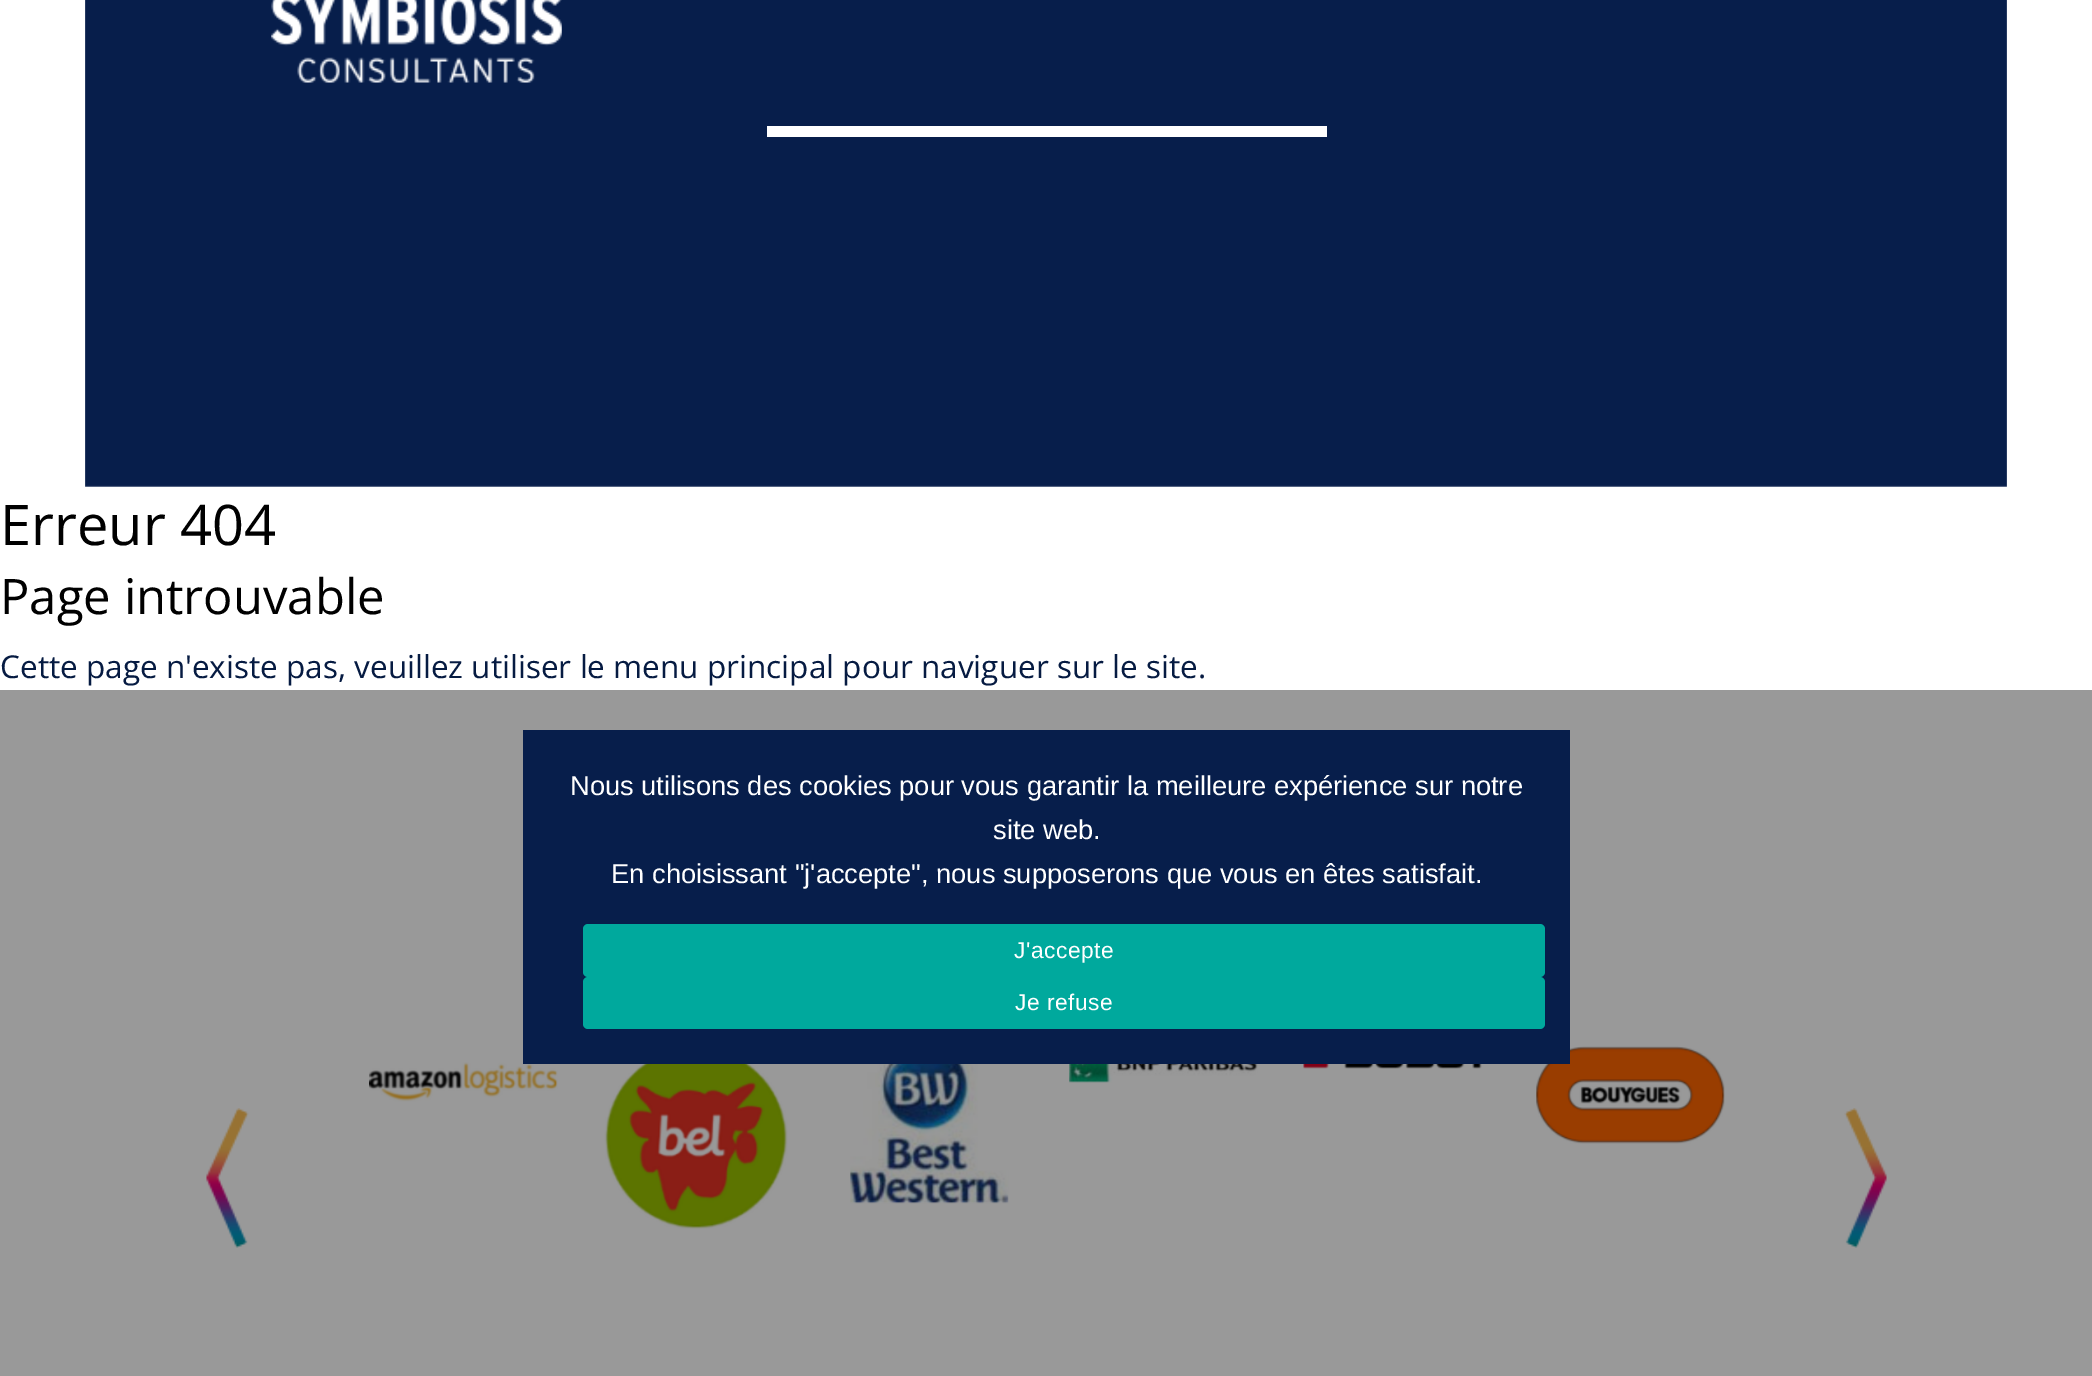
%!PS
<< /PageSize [2092 1376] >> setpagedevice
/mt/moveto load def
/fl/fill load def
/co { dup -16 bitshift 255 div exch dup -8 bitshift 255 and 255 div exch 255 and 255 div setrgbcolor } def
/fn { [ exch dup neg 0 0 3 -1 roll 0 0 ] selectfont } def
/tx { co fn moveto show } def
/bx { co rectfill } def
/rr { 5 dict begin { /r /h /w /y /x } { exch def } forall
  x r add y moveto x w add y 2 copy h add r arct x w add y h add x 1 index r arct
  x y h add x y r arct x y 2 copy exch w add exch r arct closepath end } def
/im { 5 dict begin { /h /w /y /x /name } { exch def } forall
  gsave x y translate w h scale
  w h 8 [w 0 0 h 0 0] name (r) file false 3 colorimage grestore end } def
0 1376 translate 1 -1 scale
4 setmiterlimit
0 0 2092 1376 16#FFFFFF bx
0 690 2092 686 16#999999 bx
(media/1.raw) 85 0 1922 487 im
(media/2.raw) 271 0 291 83 im
767 126 560 11 16#FFFFFF bx
(media/3.raw) 369 1062 189 40 im
(media/8.raw) 1536 1046 189 98 im
523 730 1047 334 16#071E4B bx
16#00A99D co
583 924 962 53 5 rr fl
583 977 962 52 5 rr fl
(media/4.raw) 604 1064 184 165 im
(media/5.raw) 850 1064 159 140 im
(media/6.raw) 1069 1064 189 19 im
(media/7.raw) 1303 1064 179 5 im
(media/9.raw) 206 1108 43 140 im
(media/10.raw) 1844 1108 43 140 im
(Erreur 404) 0 545 /OpenSans-Regular 56 16#000000 tx
(Page introuvable) 0 614 /OpenSans-Regular 49 16#000000 tx
(Cette page n'existe pas, veuillez utiliser le menu principal pour naviguer sur le site.) 0 678 /OpenSans-Regular 31.5 16#061B42 tx
(Nous utilisons des cookies pour vous garantir la meilleure expérience sur notre) 570 795 /LiberationSans-Regular 27.3 16#FFFFFF tx
(site web.) 993 839 /LiberationSans-Regular 27.3 16#FFFFFF tx
(En choisissant "j'accepte", nous supposerons que vous en êtes satisfait.) 611 883 /LiberationSans-Regular 27.3 16#FFFFFF tx
/LiberationSans-Regular 22.75 fn
1014 958 mt .5 0 (J'accepte) ashow
1015 1010 mt .5 0 (Je refuse) ashow
showpage
